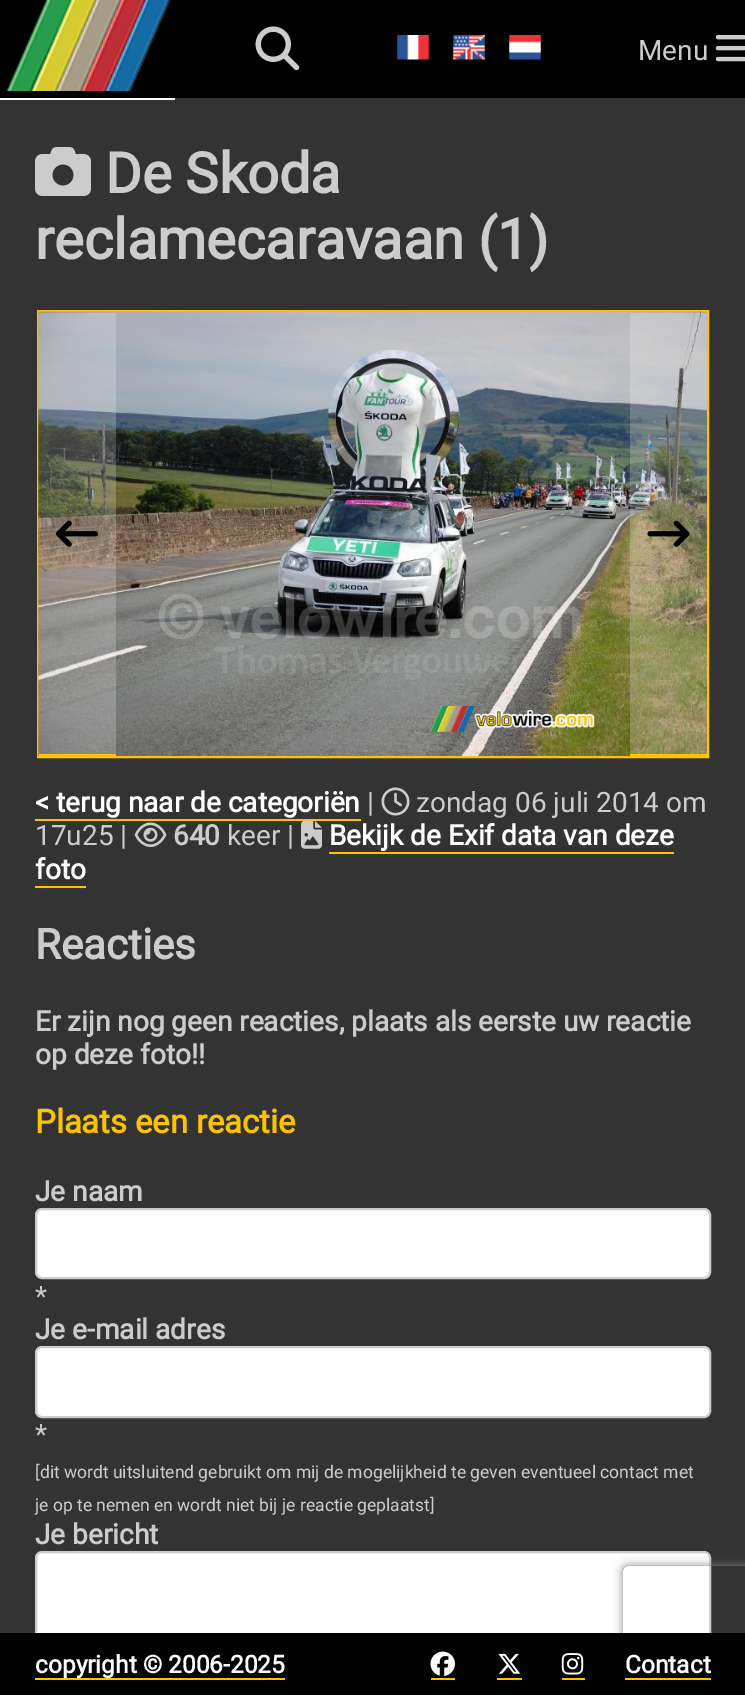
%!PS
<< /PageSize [745 1695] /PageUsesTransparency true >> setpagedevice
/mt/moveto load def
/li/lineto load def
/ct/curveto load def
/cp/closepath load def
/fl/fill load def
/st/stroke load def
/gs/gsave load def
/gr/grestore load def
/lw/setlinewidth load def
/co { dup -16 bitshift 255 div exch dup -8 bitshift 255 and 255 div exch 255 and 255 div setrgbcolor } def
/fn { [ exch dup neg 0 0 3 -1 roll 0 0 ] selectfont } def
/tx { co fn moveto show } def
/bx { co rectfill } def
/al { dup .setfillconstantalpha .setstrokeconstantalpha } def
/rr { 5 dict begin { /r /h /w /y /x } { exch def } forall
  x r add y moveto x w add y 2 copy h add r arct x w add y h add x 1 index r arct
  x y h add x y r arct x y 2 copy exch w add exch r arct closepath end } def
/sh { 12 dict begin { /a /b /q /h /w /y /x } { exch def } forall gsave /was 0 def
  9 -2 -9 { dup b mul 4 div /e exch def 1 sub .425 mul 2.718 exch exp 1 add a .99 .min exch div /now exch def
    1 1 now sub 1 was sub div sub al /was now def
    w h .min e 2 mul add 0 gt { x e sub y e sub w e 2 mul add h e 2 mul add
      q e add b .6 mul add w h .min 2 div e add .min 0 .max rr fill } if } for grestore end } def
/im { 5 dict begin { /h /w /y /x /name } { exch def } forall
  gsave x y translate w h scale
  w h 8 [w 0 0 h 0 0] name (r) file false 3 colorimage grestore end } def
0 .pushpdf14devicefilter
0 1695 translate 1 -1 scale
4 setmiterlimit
0 0 745 1695 16#333333 bx
0 0 745 98 16#000000 bx
(media/1.raw) 6 0 165 91 im
0 98 175 2 16#FFFFFF bx
(media/2.raw) 255 26 45 45 im
(media/3.raw) 397 35 32 25 im
(media/4.raw) 453 35 32 25 im
(media/5.raw) 509 35 32 25 im
(media/6.raw) 715 35 30 27 im
(media/7.raw) 35 147 56 49 im
16#FDC300 co
2 lw
38 311 670 446 rectstroke
(media/8.raw) 38 311 669 445 im
0.2 al
39 313 77 441 16#FFFFFF bx
1 al
39 754 77 2 16#FDC300 bx
(media/9.raw) 56 520 42 27 im
0.2 al
630 313 77 441 16#FFFFFF bx
1 al
630 754 77 2 16#FDC300 bx
(media/10.raw) 647 520 43 27 im
35 819 326 2 16#FDC300 bx
(media/11.raw) 381 787 29 29 im
(media/12.raw) 134 822 33 25 im
(media/13.raw) 301 820 21 29 im
329 852 345 2 16#FDC300 bx
35 886 51 2 16#FDC300 bx
16#FFFFFF co
36 1209 674 69 6 rr gs fl gr
16#CCCCCC co
st
16#FFFFFF co
36 1347 674 70 6 rr gs fl gr
16#CCCCCC co
st
16#FFFFFF co
36 1552 674 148 6 rr gs fl gr
16#CCCCCC co
st
gs
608 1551 mt 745 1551 li 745 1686 li 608 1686 li cp 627 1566 mt 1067 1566 li 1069 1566 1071 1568 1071 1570 ct 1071 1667 li 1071 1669 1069 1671 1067 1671 ct 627 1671 li 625 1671 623 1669 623 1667 ct 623 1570 li 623 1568 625 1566 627 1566 ct cp eoclip newpath
16#808080 co
623 1566 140 105 4 4.5 1 sh
gr
0 1633 745 62 16#000000 bx
35 1678 250 2 16#FDC300 bx
431 1678 24 2 16#FDC300 bx
(media/14.raw) 430 1651 25 25 im
497 1678 25 2 16#FDC300 bx
(media/15.raw) 498 1653 23 21 im
562 1678 23 2 16#FDC300 bx
(media/16.raw) 561 1653 23 22 im
625 1678 86 2 16#FDC300 bx
(Menu) 638 60 /Roboto-Regular 28 16#CCCCCC tx
(De Skoda) 105 193 /Roboto-Bold 56 16#CCCCCC tx
(reclamecaravaan \(1\)) 35 259 /Roboto-Bold 56 16#CCCCCC tx
(< terug naar de categoriën) 35 812 /Roboto-Bold 28 16#FFFFFF tx
(|) 367 812 /Roboto-Regular 28 16#CCCCCC tx
(zondag 06 juli 2014 om) 416 812 /Roboto-Regular 28 16#CCCCCC tx
(17u25 |) 35 845 /Roboto-Regular 28 16#CCCCCC tx
(640) 173 845 /Roboto-Bold 28 16#CCCCCC tx
(keer |) 227 845 /Roboto-Regular 28 16#CCCCCC tx
(Bekijk de Exif data van deze) 329 845 /Roboto-Bold 28 16#FFFFFF tx
(foto) 35 879 /Roboto-Bold 28 16#FFFFFF tx
(Reacties) 35 959 /Roboto-Bold 42 16#CCCCCC tx
(Er zijn nog geen reacties, plaats als eerste uw reactie) 35 1031 /Roboto-Bold 28 16#CCCCCC tx
(op deze foto!!) 35 1064 /Roboto-Bold 28 16#CCCCCC tx
(Plaats een reactie) 35 1133 /Roboto-Bold 32.75 16#FDC300 tx
(Je naam) 35 1201 /Roboto-Bold 28 16#CCCCCC tx
(*) 35 1306 /Roboto-Regular 28 16#CCCCCC tx
(Je e-mail adres) 35 1339 /Roboto-Bold 28 16#CCCCCC tx
(*) 35 1444 /Roboto-Regular 28 16#CCCCCC tx
([dit wordt uitsluitend gebruikt om mij de mogelijkheid te geven eventueel contact met) 35 1478 /Roboto-Regular 17.5 16#CCCCCC tx
(je op te nemen en wordt niet bij je reactie geplaatst]) 35 1511 /Roboto-Regular 17.5 16#CCCCCC tx
(Je bericht) 35 1544 /Roboto-Bold 28 16#CCCCCC tx
(copyright © 2006-2025) 35 1673 /Roboto-Bold 24.5 16#FFFFFF tx
(Contact) 625 1673 /Roboto-Bold 24.5 16#FFFFFF tx
.poppdf14devicefilter showpage
